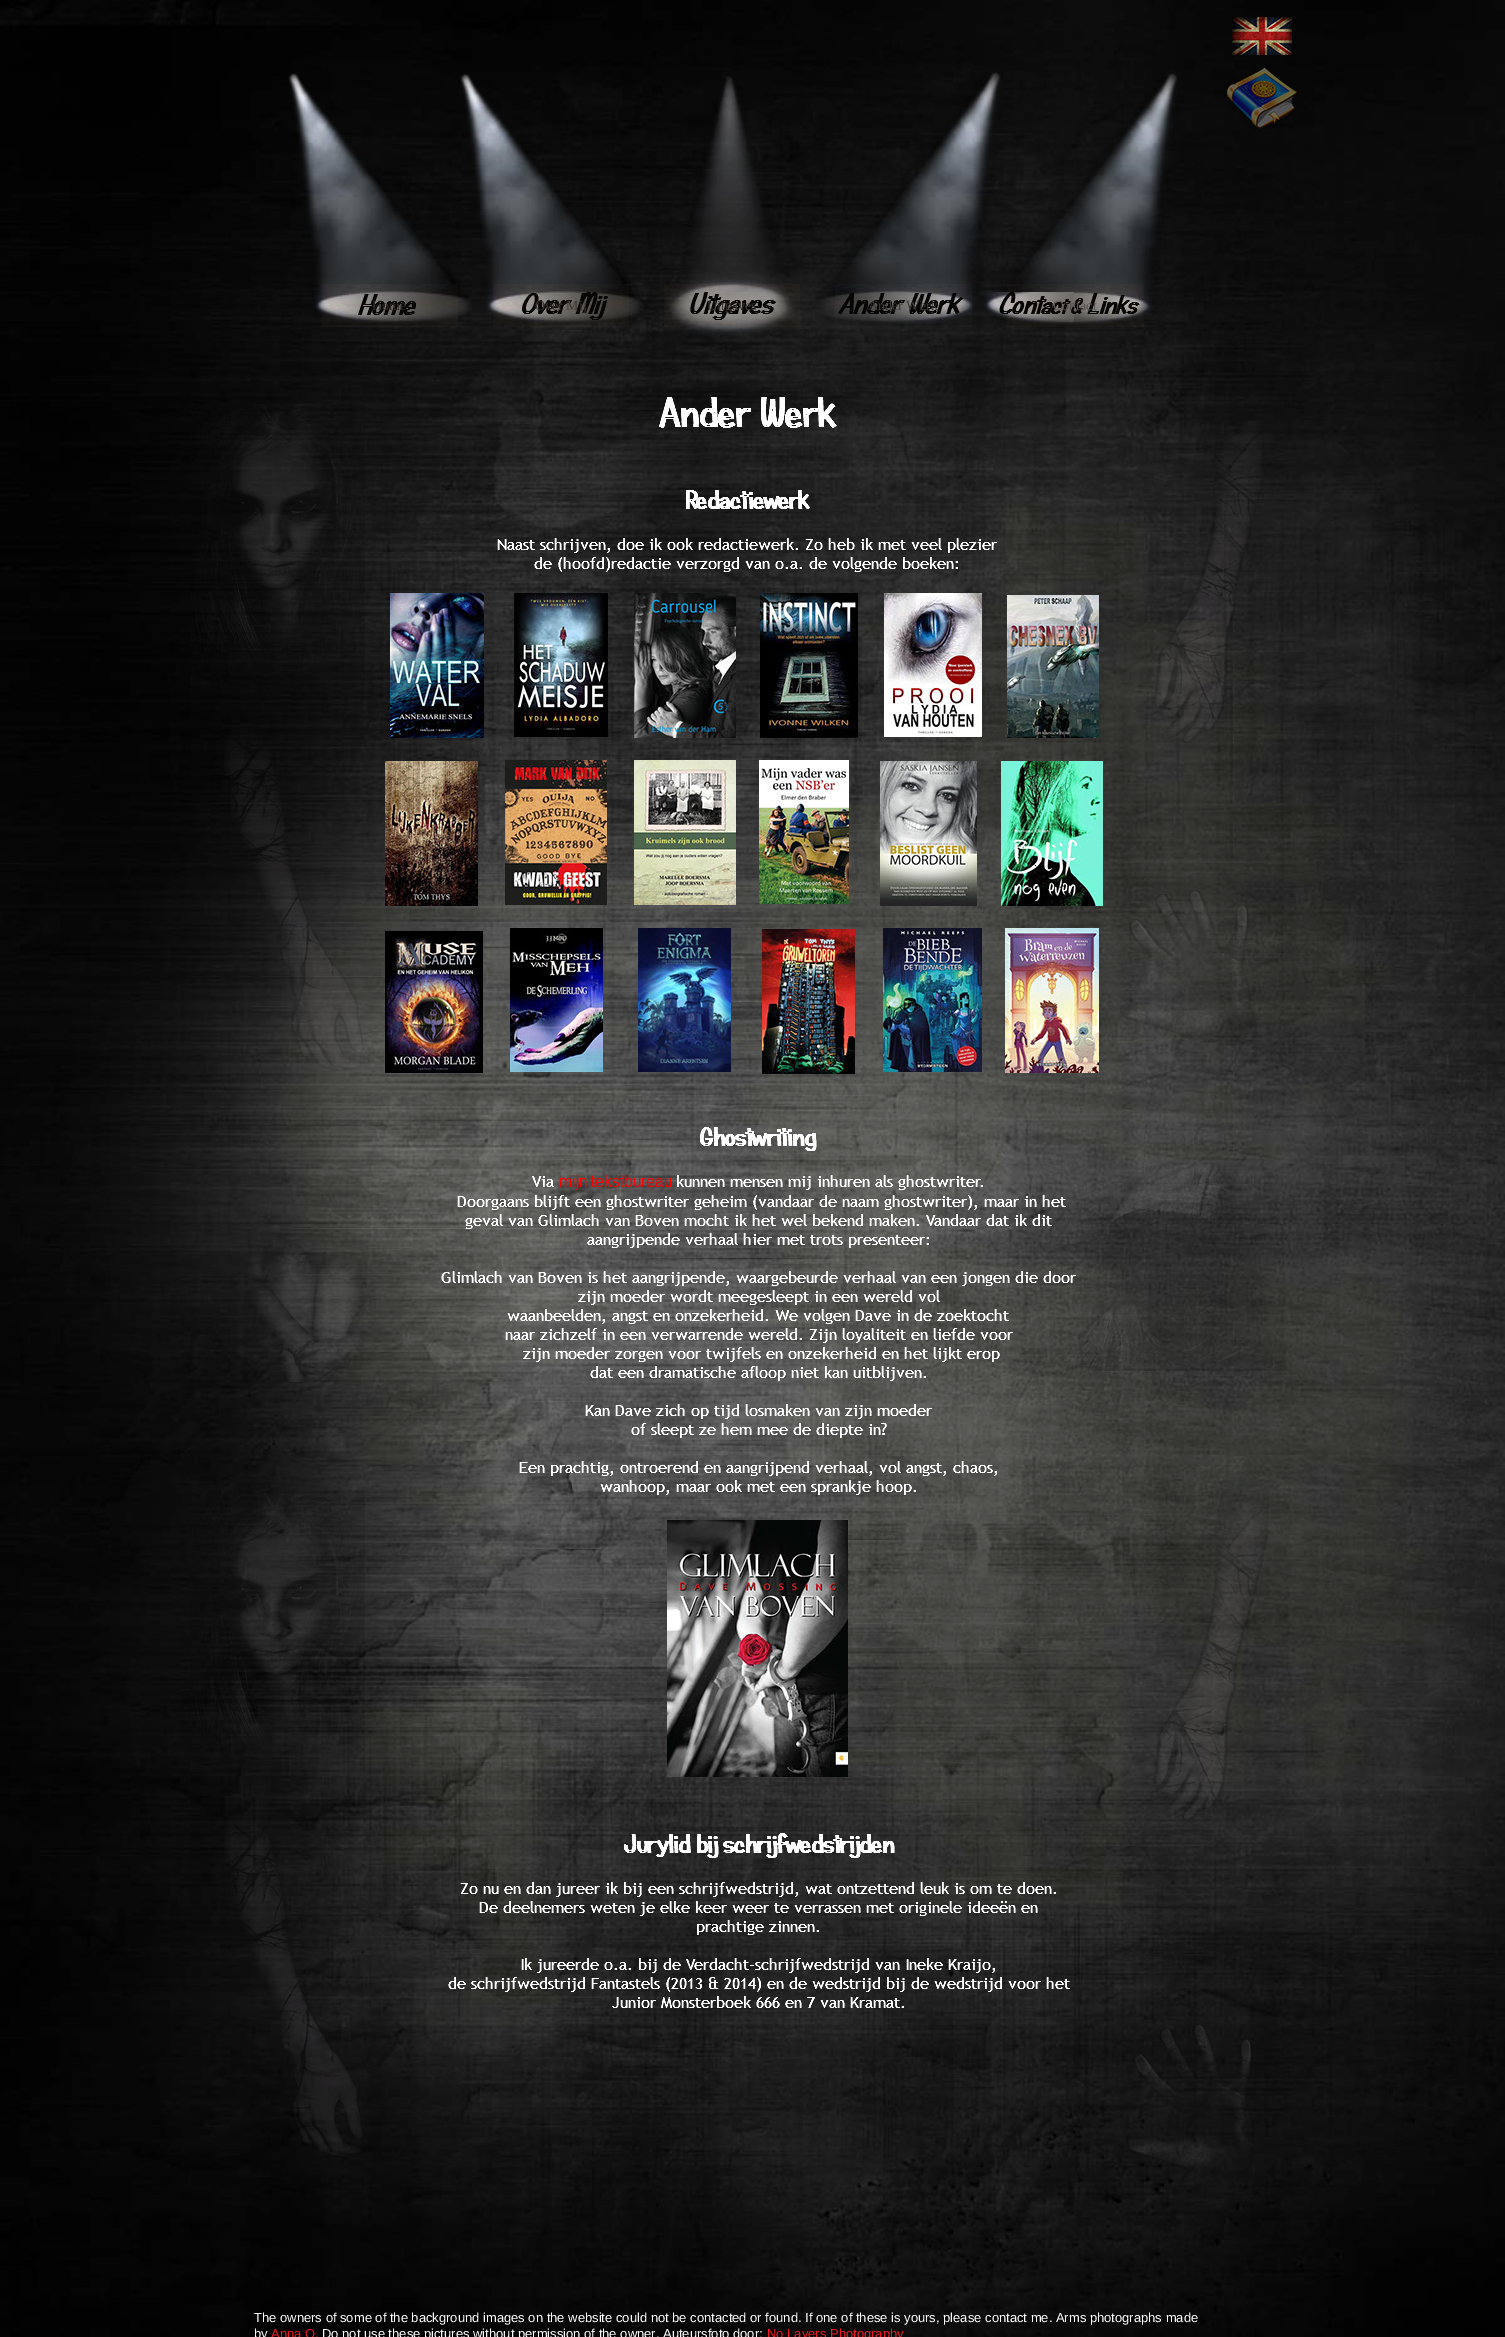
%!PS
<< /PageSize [1505 2337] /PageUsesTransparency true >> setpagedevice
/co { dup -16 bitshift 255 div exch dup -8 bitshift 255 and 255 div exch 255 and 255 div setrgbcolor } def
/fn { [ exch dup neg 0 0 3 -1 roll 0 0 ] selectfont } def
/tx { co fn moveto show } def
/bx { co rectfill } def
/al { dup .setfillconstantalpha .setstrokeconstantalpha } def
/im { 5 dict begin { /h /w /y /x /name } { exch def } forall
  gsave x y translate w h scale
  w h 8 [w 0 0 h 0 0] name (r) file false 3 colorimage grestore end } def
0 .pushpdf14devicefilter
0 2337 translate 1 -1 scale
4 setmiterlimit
0 0 1505 2337 16#000000 bx
(media/1.raw) 0 0 1505 2337 im
(media/3.raw) 460 74 184 250 im
(media/2.raw) 288 73 184 250 im
(media/4.raw) 666 76 130 261 im
(media/6.raw) 992 73 186 255 im
(media/11.raw) 984 292 90 31 im
(media/5.raw) 815 72 186 255 im
(media/7.raw) 1232 17 60 38 im
(media/8.raw) 1227 68 71 61 im
(media/9.raw) 522 292 86 28 im
(media/10.raw) 690 292 86 28 im
(media/12.raw) 358 294 58 21 im
(media/13.raw) 838 293 125 21 im
(media/14.raw) 999 292 141 22 im
0.03 al
322 284 136 43 16#E6AF6E bx
493 284 136 43 16#E2973F bx
664 284 136 43 16#E2973F bx
835 284 137 43 16#999999 bx
1007 284 137 43 16#E2973F bx
1 al
(media/15.raw) 190 404 175 282 im
(media/16.raw) 390 593 94 145 im
(media/17.raw) 497 397 500 175 im
(media/18.raw) 1151 421 111 322 im
(media/19.raw) 514 593 94 144 im
(media/20.raw) 634 593 102 145 im
(media/21.raw) 760 593 98 145 im
(media/22.raw) 884 593 98 144 im
(media/23.raw) 1007 595 92 143 im
(media/24.raw) 224 728 140 343 im
(media/25.raw) 385 761 93 145 im
(media/26.raw) 505 760 102 145 im
(media/27.raw) 634 760 102 145 im
(media/28.raw) 759 760 90 144 im
(media/29.raw) 880 761 97 145 im
(media/30.raw) 1001 761 102 145 im
(media/31.raw) 385 931 98 142 im
(media/32.raw) 510 928 93 144 im
(media/33.raw) 638 928 93 144 im
(media/34.raw) 762 929 93 145 im
(media/35.raw) 883 928 99 144 im
(media/36.raw) 1005 928 94 145 im
(media/37.raw) 1120 890 137 153 im
(media/38.raw) 248 1229 128 153 im
(media/39.raw) 441 1127 635 881 im
(media/40.raw) 1078 1157 214 214 im
(media/41.raw) 190 1490 175 282 im
(media/42.raw) 667 1520 181 257 im
(media/43.raw) 1151 1480 125 341 im
(media/44.raw) 224 1820 139 336 im
(media/45.raw) 1130 2025 125 149 im
(Home) 372 310 /LiberationSerif-Regular 14 16#2E2B29 tx
(Over Mij) 535 310 /LiberationSerif-Regular 14 16#3B3834 tx
(Uitgaves) 707 310 /LiberationSerif-Regular 14 16#3B3834 tx
(Ander Werk) 868 310 /LiberationSerif-Regular 14 16#3B3834 tx
(Contact) 1053 310 /LiberationSerif-Regular 14 16#54504C tx
(The owners of some of the background images on the website could not be contacted or found. If one of these is yours, please contact me. Arms photographs made) 254 2322 /LiberationSans-Regular 13 16#FFFFFF tx
(by) 254 2338 /LiberationSans-Regular 13 16#FFFFFF tx
(Anna O.) 271 2338 /LiberationSans-Regular 13 16#ED1C24 tx
(Do not use these pictures without permission of the owner. Auteursfoto door:) 322 2338 /LiberationSans-Regular 13 16#FFFFFF tx
(No Layers Photography) 767 2338 /LiberationSans-Regular 13 16#ED1C24 tx
.poppdf14devicefilter showpage
